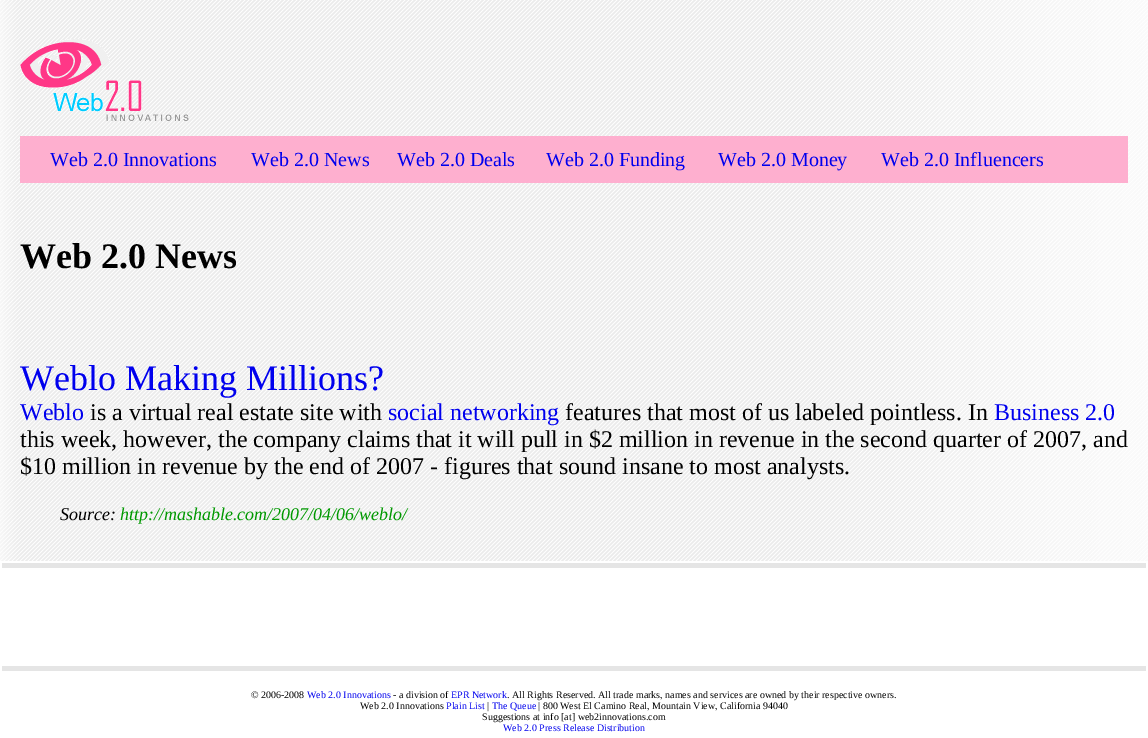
%!PS
<< /PageSize [1148 738] >> setpagedevice
/co { dup -16 bitshift 255 div exch dup -8 bitshift 255 and 255 div exch 255 and 255 div setrgbcolor } def
/fn { [ exch dup neg 0 0 3 -1 roll 0 0 ] selectfont } def
/tx { co fn moveto show } def
/bx { co rectfill } def
/im { 5 dict begin { /h /w /y /x /name } { exch def } forall
  gsave x y translate w h scale
  w h 8 [w 0 0 h 0 0] name (r) file false 3 colorimage grestore end } def
0 738 translate 1 -1 scale
4 setmiterlimit
0 0 1148 738 16#FFFFFF bx
(media/1.raw) 0 0 1148 561 im
(media/2.raw) 20 39 169 82 im
20 136 1108 47 16#FEAFCF bx
2 563 1144 5 16#E5E5E5 bx
2 666 1144 5 16#E5E5E5 bx
(Web 2.0 Innovations) 50 166 /LiberationSerif-Regular 20 16#0000EE tx
(Web 2.0 News) 251 166 /LiberationSerif-Regular 20 16#0000EE tx
(Web 2.0 Deals) 397 166 /LiberationSerif-Regular 20 16#0000EE tx
(Web 2.0 Funding) 546 166 /LiberationSerif-Regular 20 16#0000EE tx
(Web 2.0 Money) 718 166 /LiberationSerif-Regular 20 16#0000EE tx
(Web 2.0 Influencers) 881 166 /LiberationSerif-Regular 20 16#0000EE tx
(Web 2.0 News) 20 268 /LiberationSerif-Bold 36 16#000000 tx
(Weblo Making Millions?) 20 390 /LiberationSerif-Regular 36 16#0000EE tx
(Weblo) 20 420 /LiberationSerif-Regular 24 16#0000EE tx
(is a virtual real estate site with) 90 420 /LiberationSerif-Regular 24 16#000000 tx
(social networking) 388 420 /LiberationSerif-Regular 24 16#0000EE tx
(features that most of us labeled pointless. In) 565 420 /LiberationSerif-Regular 24 16#000000 tx
(Business 2.0) 994 420 /LiberationSerif-Regular 24 16#0000EE tx
(this week, however, the company claims that it will pull in $2 million in revenue in the second quarter of 2007, and) 20 447 /LiberationSerif-Regular 24 16#000000 tx
($10 million in revenue by the end of 2007 - figures that sound insane to most analysts.) 20 474 /LiberationSerif-Regular 24 16#000000 tx
(Source:) 60 520 /LiberationSerif-Italic 18 16#000000 tx
(http://mashable.com/2007/04/06/weblo/) 120 520 /LiberationSerif-Italic 18 16#009900 tx
(© 2006-2008) 251 698 /LiberationSerif-Regular 10 16#000000 tx
(Web 2.0 Innovations) 307 698 /LiberationSerif-Regular 10 16#0000EE tx
(- a division of) 393 698 /LiberationSerif-Regular 10 16#000000 tx
(EPR Network) 451 698 /LiberationSerif-Regular 10 16#0000EE tx
(. All Rights Reserved. All trade marks, names and services are owned by their respective owners.) 507 698 /LiberationSerif-Regular 10 16#000000 tx
(Web 2.0 Innovations) 360 709 /LiberationSerif-Regular 10 16#000000 tx
(Plain List) 446 709 /LiberationSerif-Regular 10 16#0000EE tx
(|) 487 709 /LiberationSerif-Regular 10 16#000000 tx
(The Queue) 492 709 /LiberationSerif-Regular 10 16#0000EE tx
(| 800 West El Camino Real, Mountain View, California 94040) 538 709 /LiberationSerif-Regular 10 16#000000 tx
(Suggestions at info [at] web2innovations.com) 482 720 /LiberationSerif-Regular 10 16#000000 tx
(Web 2.0 Press Release Distribution) 503 731 /LiberationSerif-Regular 10 16#0000EE tx
showpage
